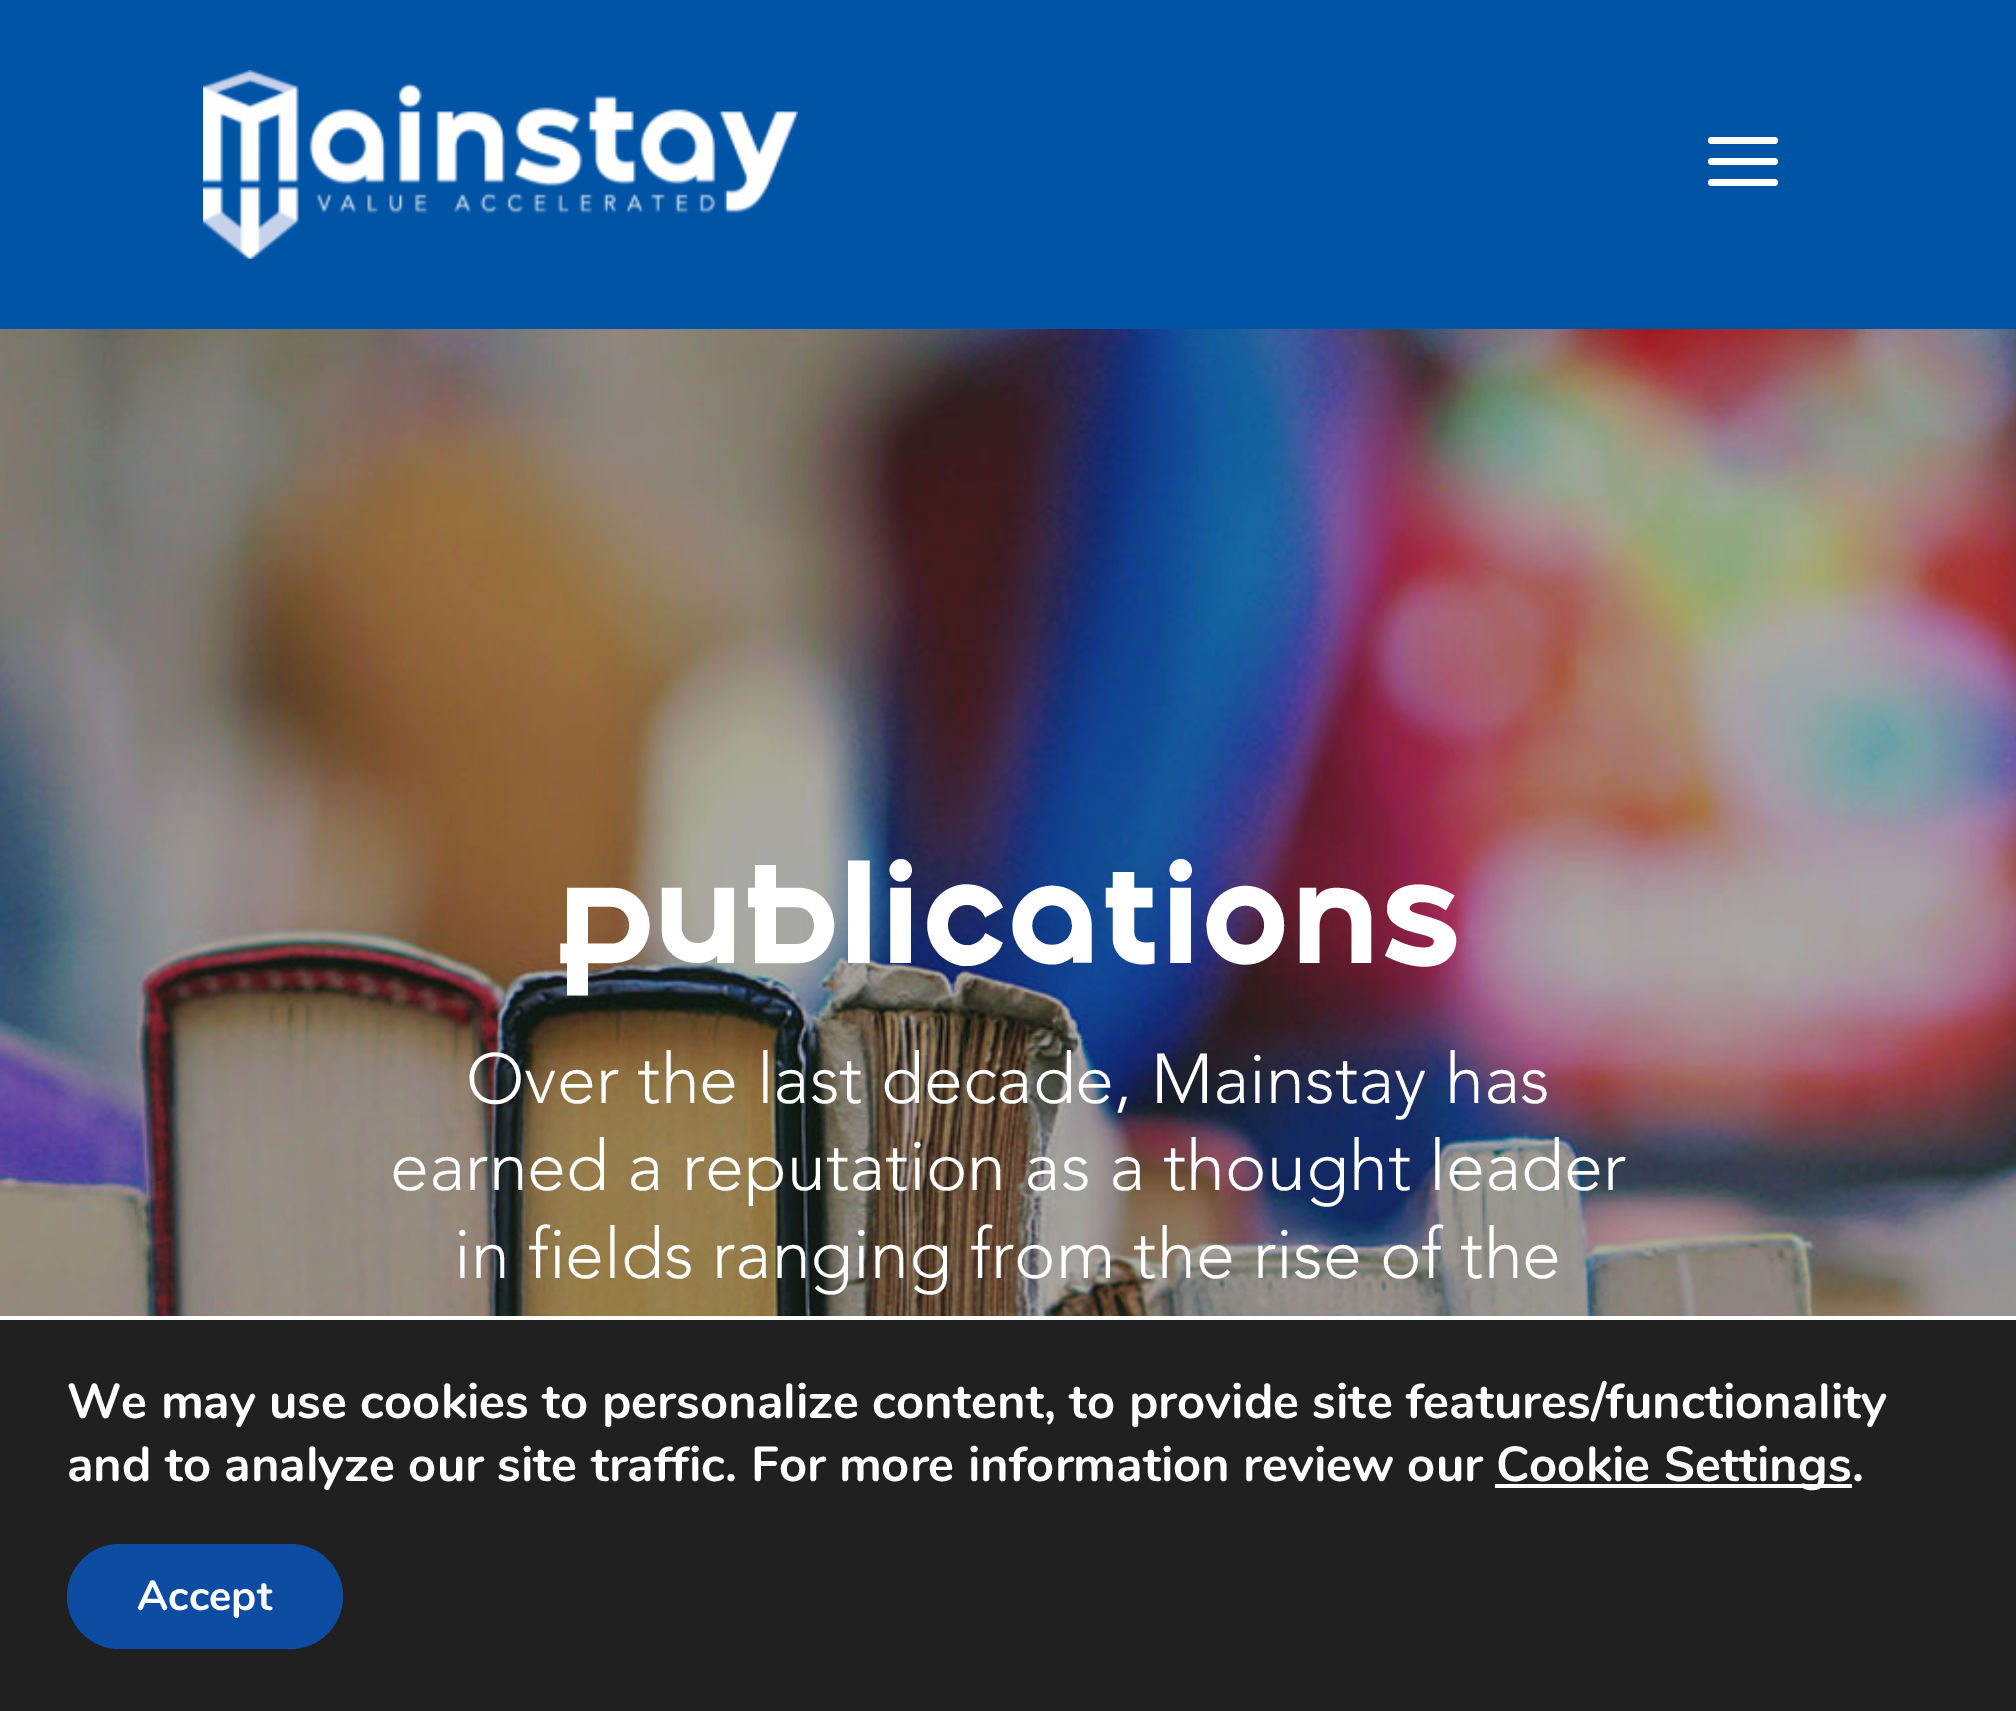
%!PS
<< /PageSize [2016 1711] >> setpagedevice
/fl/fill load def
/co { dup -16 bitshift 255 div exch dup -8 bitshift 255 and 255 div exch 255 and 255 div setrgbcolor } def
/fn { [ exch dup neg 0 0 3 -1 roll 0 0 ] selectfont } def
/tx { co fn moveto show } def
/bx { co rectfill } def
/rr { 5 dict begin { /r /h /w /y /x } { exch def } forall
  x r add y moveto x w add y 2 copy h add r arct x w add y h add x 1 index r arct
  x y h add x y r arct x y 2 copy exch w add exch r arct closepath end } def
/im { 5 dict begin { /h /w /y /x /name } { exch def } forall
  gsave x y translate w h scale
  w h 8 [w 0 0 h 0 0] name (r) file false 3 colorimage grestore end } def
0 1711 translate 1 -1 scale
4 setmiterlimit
0 0 2016 1711 16#FFFFFF bx
0 0 2016 329 16#0054A6 bx
(media/1.raw) 203 70 595 189 im
16#FFFFFF co
1708 158 70 7 3.5 rr fl
1708 137 70 7 3.5 rr fl
1708 179 70 7 3.5 rr fl
(media/2.raw) 0 329 2016 987 im
0 1320 2016 391 16#202020 bx
1495 1484 357 4 16#FFFFFF bx
16#0C4DA2 co
67 1544 276 105 52.5 rr fl
(publications) 555 963 /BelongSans-Bold 140 16#FFFFFF tx
(Over the last decade, Mainstay has) 466 1103 /Avenir-Light 70 16#FFFFFF tx
(earned a reputation as a thought leader) 390 1190 /Avenir-Light 70 16#FFFFFF tx
(in fields ranging from the rise of the) 454 1278 /Avenir-Light 70 16#FFFFFF tx
(We may use cookies to personalize content, to provide site features/functionality) 67 1418 /Nunito-Bold 49 16#FFFFFF tx
(and to analyze our site traffic. For more information review our) 67 1481 /Nunito-Bold 49 16#FFFFFF tx
(Cookie Settings.) 1496 1481 /Nunito-Bold 49 16#FFFFFF tx
(Accept) 137 1610 /Nunito-Bold 42 16#FFFFFF tx
showpage
